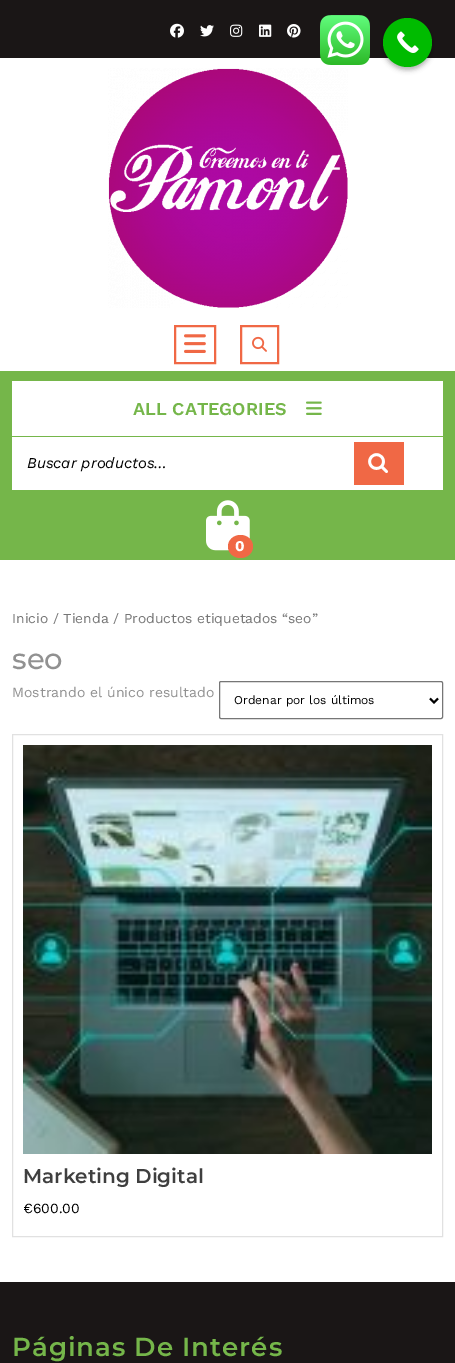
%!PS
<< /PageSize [455 1363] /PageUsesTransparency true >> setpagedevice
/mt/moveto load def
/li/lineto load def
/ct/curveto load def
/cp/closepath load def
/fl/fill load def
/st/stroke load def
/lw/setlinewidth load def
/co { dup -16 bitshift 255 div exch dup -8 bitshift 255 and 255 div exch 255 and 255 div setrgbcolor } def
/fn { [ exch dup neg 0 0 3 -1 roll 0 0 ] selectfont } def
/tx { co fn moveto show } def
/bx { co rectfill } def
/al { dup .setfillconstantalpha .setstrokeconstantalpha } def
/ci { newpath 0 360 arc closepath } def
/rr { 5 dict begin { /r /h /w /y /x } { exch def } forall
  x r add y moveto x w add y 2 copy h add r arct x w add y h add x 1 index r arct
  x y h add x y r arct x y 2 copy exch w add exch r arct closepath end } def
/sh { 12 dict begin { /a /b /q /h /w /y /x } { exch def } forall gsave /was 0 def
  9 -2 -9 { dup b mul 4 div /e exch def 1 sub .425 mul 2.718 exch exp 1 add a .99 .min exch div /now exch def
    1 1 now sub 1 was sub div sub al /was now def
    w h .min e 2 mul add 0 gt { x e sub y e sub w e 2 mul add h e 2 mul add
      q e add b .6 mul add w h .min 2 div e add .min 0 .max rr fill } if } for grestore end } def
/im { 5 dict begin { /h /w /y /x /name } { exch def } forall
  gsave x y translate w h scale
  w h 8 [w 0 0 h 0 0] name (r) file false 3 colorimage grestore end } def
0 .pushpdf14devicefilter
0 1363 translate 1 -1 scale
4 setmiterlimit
0 0 455 1363 16#FFFFFF bx
0 0 455 58 16#1A1616 bx
(media/1.raw) 320 15 50 50 im
16#000000 co
383 20 49 50 24.5 2.5 .3 sh
16#00BB00 co
407.5 42.5 24.5 ci fl
(media/2.raw) 397 31 22 22 im
(media/3.raw) 170 23 14 15 im
(media/4.raw) 200 25 14 12 im
(media/5.raw) 230 24 13 13 im
(media/6.raw) 259 24 13 13 im
(media/7.raw) 287 24 14 14 im
(media/8.raw) 108 68 240 240 im
16#F06845 co
2 lw
175 326 40 37 rectstroke
(media/9.raw) 184 334 22 19 im
241 326 37 37 rectstroke
(media/10.raw) 252 336 15 16 im
0 371 455 189 16#75B64A bx
12 381 431 55 16#FFFFFF bx
(media/11.raw) 306 401 16 14 im
12 437 431 53 16#FFFFFF bx
354 442 50 43 16#F06845 bx
(media/12.raw) 368 453 20 20 im
(media/13.raw) 206 500 44 51 im
240.5 535 mt 247.5 535 253 540 253 546.5 ct 253 553 247.5 558 240.5 558 ct 233.5 558 228 553 228 546.5 ct 228 540 233.5 535 240.5 535 ct cp fl
16#767676 co
1 lw
219.5 681.5 223 37 1.5 rr st
16#000000 co
2 lw
430 698.5 mt 434 702.5 li 438 698.5 li st
16#E1E1E1 co
1 lw
12.5 734.5 430 502 rectstroke
(media/14.raw) 23 745 409 409 im
0 1282 455 81 16#1A1616 bx
(ALL CATEGORIES) 133 415 /WorkSans-SemiBold 18 16#75B64A tx
(Buscar productos…) 27 468 /WorkSans-Italic 15 16#000000 tx
(0) 235 551 /WorkSans-Bold 15 16#FFFFFF tx
(Inicio / Tienda / Productos etiquetados “seo”) 12 623 /WorkSans-Regular 13.8 16#767676 tx
(seo) 12 669 /Montserrat-Medium 29 16#919191 tx
(Mostrando el único resultado) 12 697 /WorkSans-Regular 14 16#919191 tx
(Ordenar por los últimos) 234 704 /WorkSans-Regular 12 16#000000 tx
(Marketing Digital) 23 1183 /Montserrat-SemiBold 20 16#3F3F3F tx
(€600.00) 23 1213 /WorkSans-Regular 14 16#000000 tx
/Montserrat-SemiBold 26 fn
16#75B64A co
12 1356 mt 1 0 (Páginas De Interés) ashow
.poppdf14devicefilter showpage
